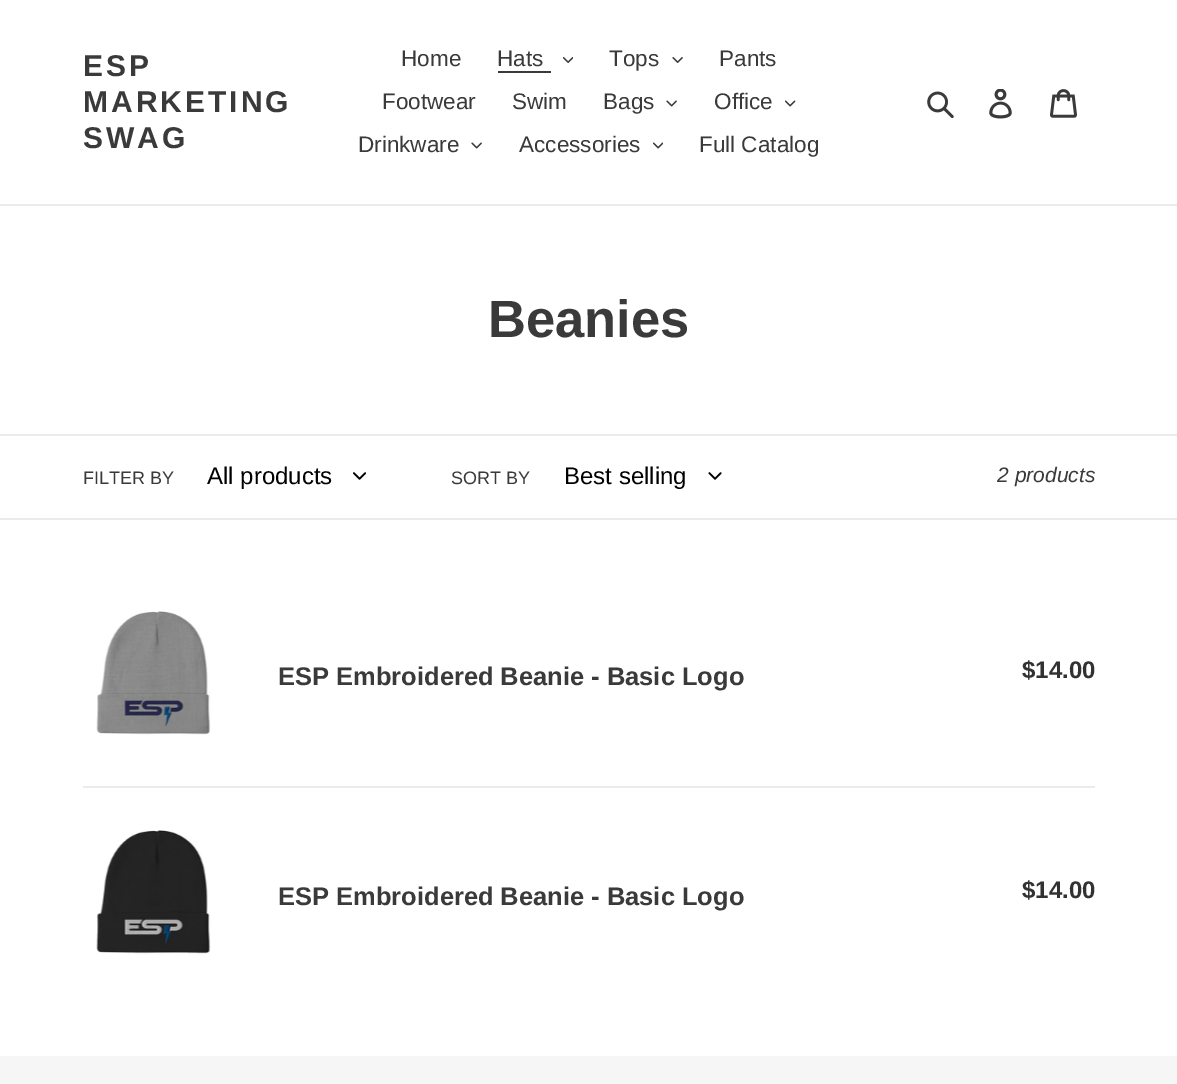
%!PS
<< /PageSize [1177 1084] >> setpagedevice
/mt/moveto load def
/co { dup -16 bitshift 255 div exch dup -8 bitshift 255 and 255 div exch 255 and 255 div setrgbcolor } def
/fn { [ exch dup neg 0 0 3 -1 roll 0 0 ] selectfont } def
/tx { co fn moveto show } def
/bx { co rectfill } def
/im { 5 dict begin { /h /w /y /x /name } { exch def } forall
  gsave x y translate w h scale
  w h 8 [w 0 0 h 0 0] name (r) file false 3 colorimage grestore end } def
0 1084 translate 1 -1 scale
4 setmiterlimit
0 0 1177 1084 16#FFFFFF bx
0 204 1177 2 16#EBEBEB bx
498 71 53 2 16#3A3A3A bx
(media/1.raw) 563 57 10 6 im
(media/2.raw) 672 57 11 6 im
(media/3.raw) 666 100 11 7 im
(media/4.raw) 785 100 11 7 im
(media/3.raw) 471 142 11 7 im
(media/5.raw) 653 142 10 7 im
(media/6.raw) 927 91 27 28 im
(media/7.raw) 989 89 23 30 im
(media/8.raw) 1050 89 27 29 im
0 434 1177 2 16#EBEBEB bx
0 518 1177 2 16#EBEBEB bx
(media/9.raw) 353 472 14 8 im
(media/10.raw) 708 472 14 8 im
83 786 1012 2 16#EBEBEB bx
(media/11.raw) 96 611 115 124 im
(media/12.raw) 96 830 115 125 im
0 1056 1177 28 16#F6F6F6 bx
/LiberationSans-Bold 30 fn
16#3A3A3A co
83 76 mt 3 0 (ESP) ashow
83 112 mt 3 0 (MARKETING) ashow
83 148 mt 3 0 (SWAG) ashow
(Home) 401 66 /LiberationSans-Regular 22.5 16#3A3A3A tx
(Hats) 497 66 /LiberationSans-Regular 22.5 16#3A3A3A tx
(Tops) 609 66 /LiberationSans-Regular 22.5 16#3A3A3A tx
(Pants) 719 66 /LiberationSans-Regular 22.5 16#3A3A3A tx
(Footwear) 382 109 /LiberationSans-Regular 22.5 16#3A3A3A tx
(Swim) 512 109 /LiberationSans-Regular 22.5 16#3A3A3A tx
(Bags) 603 109 /LiberationSans-Regular 22.5 16#3A3A3A tx
(Office) 714 109 /LiberationSans-Regular 22.5 16#3A3A3A tx
(Drinkware) 358 152 /LiberationSans-Regular 22.5 16#3A3A3A tx
(Accessories) 519 152 /LiberationSans-Regular 22.5 16#3A3A3A tx
(Full Catalog) 699 152 /LiberationSans-Regular 22.5 16#3A3A3A tx
(Beanies) 488 337 /LiberationSans-Bold 52.5 16#3A3A3A tx
(FILTER BY) 83 484 /LiberationSans-Regular 18 16#3A3A3A tx
(All products) 207 484 /LiberationSans-Regular 24 16#000000 tx
(SORT BY) 451 484 /LiberationSans-Regular 18 16#3A3A3A tx
(Best selling) 564 484 /LiberationSans-Regular 24 16#000000 tx
(2 products) 997 482 /LiberationSans-Italic 21 16#3A3A3A tx
(ESP Embroidered Beanie - Basic Logo) 278 685 /LiberationSans-Bold 25.5 16#3A3A3A tx
($14.00) 1022 678 /LiberationSans-Bold 24 16#333232 tx
(ESP Embroidered Beanie - Basic Logo) 278 905 /LiberationSans-Bold 25.5 16#3A3A3A tx
($14.00) 1022 898 /LiberationSans-Bold 24 16#333232 tx
showpage
